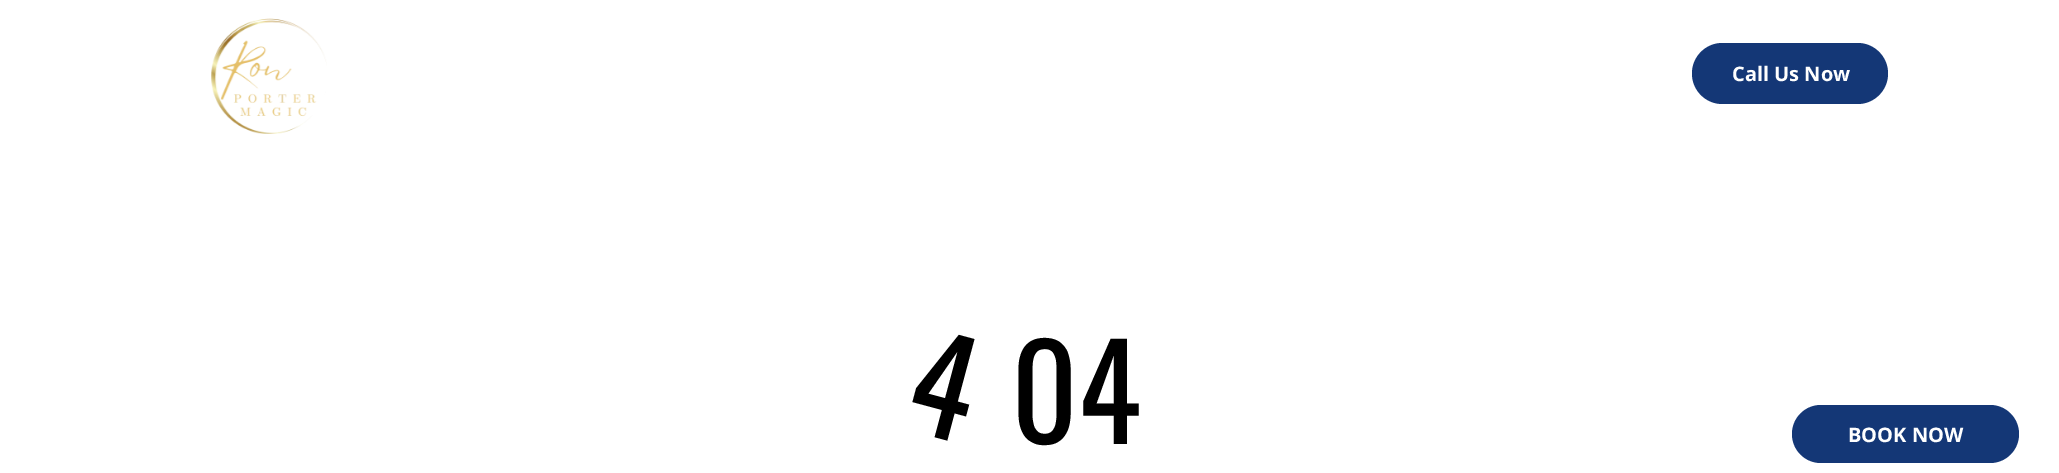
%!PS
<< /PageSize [2059 473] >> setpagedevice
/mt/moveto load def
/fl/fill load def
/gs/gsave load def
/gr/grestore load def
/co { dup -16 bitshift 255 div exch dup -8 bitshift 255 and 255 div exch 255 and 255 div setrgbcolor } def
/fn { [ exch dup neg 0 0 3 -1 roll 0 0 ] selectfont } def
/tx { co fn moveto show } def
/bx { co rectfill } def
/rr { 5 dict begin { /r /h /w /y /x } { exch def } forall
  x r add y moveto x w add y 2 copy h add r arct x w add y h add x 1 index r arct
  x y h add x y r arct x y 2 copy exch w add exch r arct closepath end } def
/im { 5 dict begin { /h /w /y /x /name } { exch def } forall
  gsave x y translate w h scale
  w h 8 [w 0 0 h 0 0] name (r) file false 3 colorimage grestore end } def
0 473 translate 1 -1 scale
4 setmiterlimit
0 0 2059 473 16#FFFFFF bx
(media/1.raw) 211 18 116 116 im
16#143776 co
1692 43 196 61 30.5 rr fl
1792 405 227 58 29 rr fl
(Call Us Now) 1732 81 /OpenSans-Bold 20 16#FFFFFF tx
/Oswald-Regular 130 fn
16#000000 co
gs 900 428 translate 15 rotate 0 0 mt (4) show gr
(04) 1011 444 /Oswald-Regular 130 16#000000 tx
(BOOK NOW) 1848 442 /OpenSans-Bold 20 16#FFFFFF tx
showpage
